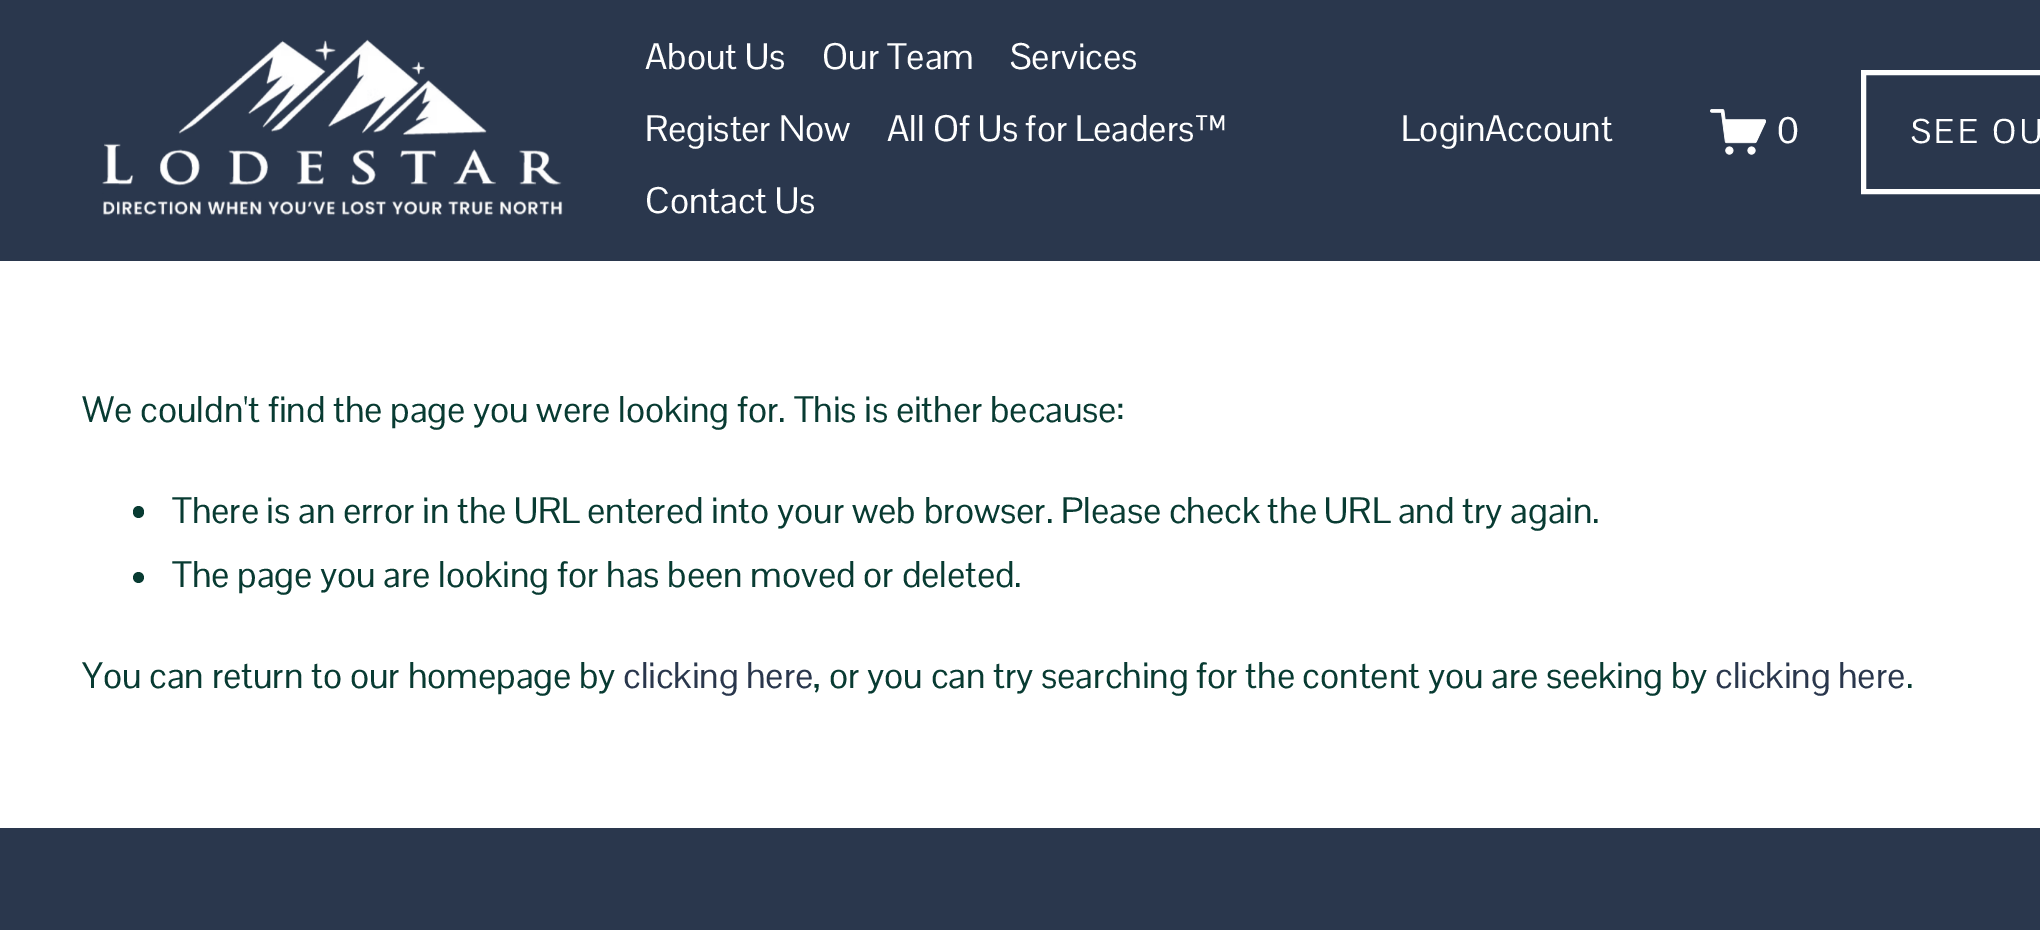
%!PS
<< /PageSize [2040 930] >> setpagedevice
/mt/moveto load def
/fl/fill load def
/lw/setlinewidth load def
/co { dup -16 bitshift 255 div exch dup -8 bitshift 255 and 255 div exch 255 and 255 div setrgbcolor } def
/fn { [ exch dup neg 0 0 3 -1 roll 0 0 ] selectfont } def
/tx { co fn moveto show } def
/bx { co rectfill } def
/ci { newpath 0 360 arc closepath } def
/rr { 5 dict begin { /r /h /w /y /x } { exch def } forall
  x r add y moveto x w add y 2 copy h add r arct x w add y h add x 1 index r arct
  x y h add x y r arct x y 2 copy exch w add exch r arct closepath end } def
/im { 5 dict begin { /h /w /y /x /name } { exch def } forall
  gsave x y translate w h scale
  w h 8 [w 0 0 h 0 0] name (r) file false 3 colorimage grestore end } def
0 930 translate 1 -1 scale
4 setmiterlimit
0 0 2040 930 16#FFFFFF bx
0 0 2040 261 16#2A374D bx
(media/1.raw) 102 39 461 177 im
(media/2.raw) 1710 109 56 46 im
16#FFFFFF co
5 lw
1863.5 72.5 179 119 rectstroke
16#083B32 co
133 506 11 12 5.5 rr fl
138.5 577.5 5.5 ci fl
0 828 2040 102 16#2A374D bx
(About Us) 645 69 /PontanoSans-Regular 36 16#FFFFFF tx
(Our Team) 822 69 /PontanoSans-Regular 36 16#FFFFFF tx
(Services) 1010 69 /PontanoSans-Regular 36 16#FFFFFF tx
(Register Now) 645 141 /PontanoSans-Regular 36 16#FFFFFF tx
(All Of Us for Leaders™) 887 141 /PontanoSans-Regular 36 16#FFFFFF tx
(Contact Us) 645 213 /PontanoSans-Regular 36 16#FFFFFF tx
(LoginAccount) 1401 141 /PontanoSans-Regular 36 16#FFFFFF tx
(0) 1777 143 /PontanoSans-Regular 36 16#FFFFFF tx
/PontanoSans-Regular 33.5 fn
1911 143 mt 3.5 0 (SEE OU) ashow
(We couldn't find the page you were looking for. This is either because:) 82 422 /PontanoSans-Regular 36 16#083B32 tx
(There is an error in the URL entered into your web browser. Please check the URL and try again.) 172 523 /PontanoSans-Regular 36 16#083B32 tx
(The page you are looking for has been moved or deleted.) 172 587 /PontanoSans-Regular 36 16#083B32 tx
(You can return to our homepage by) 82 688 /PontanoSans-Regular 36 16#083B32 tx
(clicking here) 623 688 /PontanoSans-Regular 36 16#2A374D tx
(, or you can try searching for the content you are seeking by) 813 688 /PontanoSans-Regular 36 16#083B32 tx
(clicking here) 1715 688 /PontanoSans-Regular 36 16#2A374D tx
(.) 1906 688 /PontanoSans-Regular 36 16#083B32 tx
showpage
